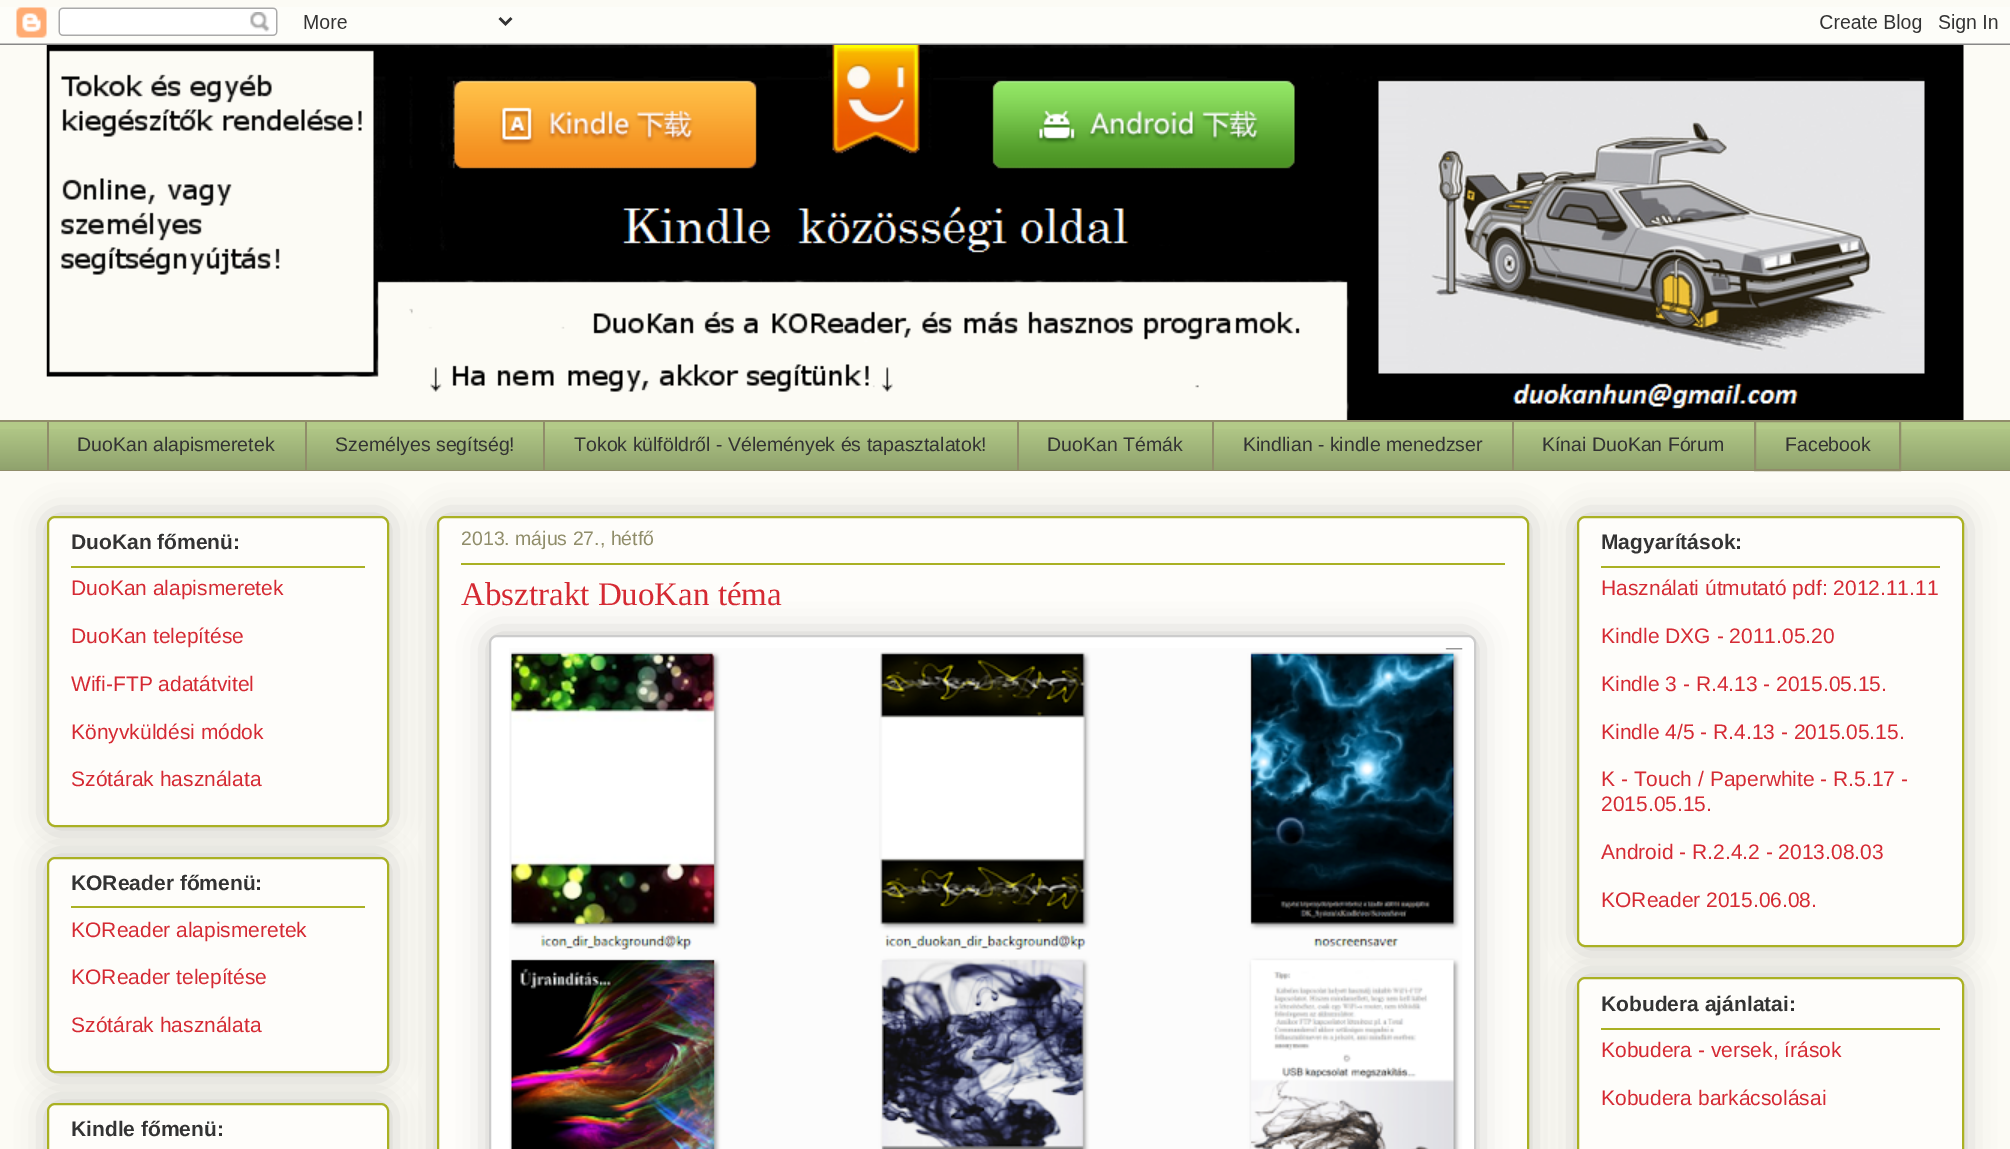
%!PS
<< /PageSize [2010 1149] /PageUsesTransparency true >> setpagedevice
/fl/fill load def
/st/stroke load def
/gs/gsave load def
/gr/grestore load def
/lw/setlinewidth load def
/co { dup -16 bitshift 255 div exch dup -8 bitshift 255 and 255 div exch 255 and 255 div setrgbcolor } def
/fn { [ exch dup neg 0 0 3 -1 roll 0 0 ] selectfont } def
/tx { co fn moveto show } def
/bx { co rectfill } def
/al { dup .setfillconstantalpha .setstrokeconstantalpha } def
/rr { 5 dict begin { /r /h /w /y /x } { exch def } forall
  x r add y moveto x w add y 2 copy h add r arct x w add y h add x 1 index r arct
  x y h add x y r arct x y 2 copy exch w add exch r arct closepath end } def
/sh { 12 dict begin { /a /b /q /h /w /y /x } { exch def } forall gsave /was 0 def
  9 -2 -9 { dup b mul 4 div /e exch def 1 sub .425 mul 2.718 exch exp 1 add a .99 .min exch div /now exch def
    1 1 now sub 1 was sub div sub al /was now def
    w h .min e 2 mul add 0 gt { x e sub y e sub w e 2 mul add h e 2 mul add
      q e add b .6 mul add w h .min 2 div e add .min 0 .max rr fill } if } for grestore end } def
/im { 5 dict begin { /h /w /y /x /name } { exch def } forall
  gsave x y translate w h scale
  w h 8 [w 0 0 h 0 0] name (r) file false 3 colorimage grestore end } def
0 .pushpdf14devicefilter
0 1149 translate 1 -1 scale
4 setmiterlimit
0 0 2010 1149 16#FCFBF5 bx
(media/1.raw) 0 7 2010 38 im
(media/2.raw) 46 45 1918 375 im
0 422 2010 48 16#B3CA88 bx
(media/3.raw) 0 429 2010 41 im
0 420 2010 2 16#908D6A bx
47 420 2 51 16#908D6A bx
305 420 2 51 16#908D6A bx
543 420 2 51 16#908D6A bx
1017 420 2 51 16#908D6A bx
1212 420 2 51 16#908D6A bx
1512 420 2 51 16#908D6A bx
2 lw
1755 421 145 49 rectstroke
0 470 2010 1 16#908D6A bx
16#000000 co
47 516 342 311 8 15 .2 sh
16#FEFDFA co
48 517 340 309 7 rr gs fl gr
16#AAB123 co
st
71 566 294 2 16#AAB123 bx
16#000000 co
47 857 342 216 8 15 .2 sh
16#FEFDFA co
48 858 340 214 7 rr gs fl gr
16#AAB123 co
st
71 906 294 2 16#AAB123 bx
16#000000 co
47 1103 342 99 8 15 .2 sh
16#FEFDFA co
48 1104 340 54 7 rr gs fl gr
16#AAB123 co
st
16#000000 co
437 516 1092 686 8 15 .2 sh
16#FEFDFA co
438 517 1090 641 7 rr gs fl gr
16#AAB123 co
st
461 563 1044 2 16#AAB123 bx
16#000000 co
489 635 987 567 8 15 .2 sh
16#FFFFFF co
490 636 985 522 7 rr gs fl gr
16#CCCCCC co
st
(media/4.raw) 509 648 954 501 im
16#000000 co
1577 516 387 431 8 15 .2 sh
16#FEFDFA co
1578 517 385 429 7 rr gs fl gr
16#AAB123 co
st
1601 566 339 2 16#AAB123 bx
16#000000 co
1577 977 387 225 8 15 .2 sh
16#FEFDFA co
1578 978 385 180 7 rr gs fl gr
16#AAB123 co
st
1601 1028 339 2 16#AAB123 bx
(DuoKan alapismeretek) 77 451 /LiberationSans-Regular 19.5 16#333333 tx
(Személyes segítség!) 335 451 /LiberationSans-Regular 19.5 16#333333 tx
(Tokok külföldről - Vélemények és tapasztalatok!) 574 451 /LiberationSans-Regular 19.5 16#333333 tx
(DuoKan Témák) 1047 451 /LiberationSans-Regular 19.5 16#333333 tx
(Kindlian - kindle menedzser) 1243 451 /LiberationSans-Regular 19.5 16#333333 tx
(Kínai DuoKan Fórum) 1542 451 /LiberationSans-Regular 19.5 16#333333 tx
(Facebook) 1785 451 /LiberationSans-Regular 19.5 16#333333 tx
(DuoKan főmenü:) 71 549 /LiberationSans-Bold 21 16#333333 tx
(DuoKan alapismeretek) 71 595 /LiberationSans-Regular 21 16#D52A33 tx
(DuoKan telepítése) 71 643 /LiberationSans-Regular 21 16#D52A33 tx
(Wifi-FTP adatátvitel) 71 691 /LiberationSans-Regular 21 16#D52A33 tx
(Könyvküldési módok) 71 739 /LiberationSans-Regular 21 16#D52A33 tx
(Szótárak használata) 71 786 /LiberationSans-Regular 21 16#D52A33 tx
(KOReader főmenü:) 71 890 /LiberationSans-Bold 21 16#333333 tx
(KOReader alapismeretek) 71 937 /LiberationSans-Regular 21 16#D52A33 tx
(KOReader telepítése) 71 984 /LiberationSans-Regular 21 16#D52A33 tx
(Szótárak használata) 71 1032 /LiberationSans-Regular 21 16#D52A33 tx
(Kindle főmenü:) 71 1136 /LiberationSans-Bold 21 16#333333 tx
(2013. május 27., hétfő) 461 545 /LiberationSans-Regular 19.5 16#908D6A tx
(Absztrakt DuoKan téma) 461 605 /LiberationSerif-Regular 33 16#D52A33 tx
(Magyarítások:) 1601 549 /LiberationSans-Bold 21 16#333333 tx
(Használati útmutató pdf: 2012.11.11) 1601 595 /LiberationSans-Regular 21 16#D52A33 tx
(Kindle DXG - 2011.05.20) 1601 643 /LiberationSans-Regular 21 16#D52A33 tx
(Kindle 3 - R.4.13 - 2015.05.15.) 1601 691 /LiberationSans-Regular 21 16#D52A33 tx
(Kindle 4/5 - R.4.13 - 2015.05.15.) 1601 739 /LiberationSans-Regular 21 16#D52A33 tx
(K - Touch / Paperwhite - R.5.17 -) 1601 786 /LiberationSans-Regular 21 16#D52A33 tx
(2015.05.15.) 1601 811 /LiberationSans-Regular 21 16#D52A33 tx
(Android - R.2.4.2 - 2013.08.03) 1601 859 /LiberationSans-Regular 21 16#D52A33 tx
(KOReader 2015.06.08.) 1601 907 /LiberationSans-Regular 21 16#D52A33 tx
(Kobudera ajánlatai:) 1601 1011 /LiberationSans-Bold 21 16#333333 tx
(Kobudera - versek, írások) 1601 1057 /LiberationSans-Regular 21 16#D52A33 tx
(Kobudera barkácsolásai) 1601 1105 /LiberationSans-Regular 21 16#D52A33 tx
.poppdf14devicefilter showpage
